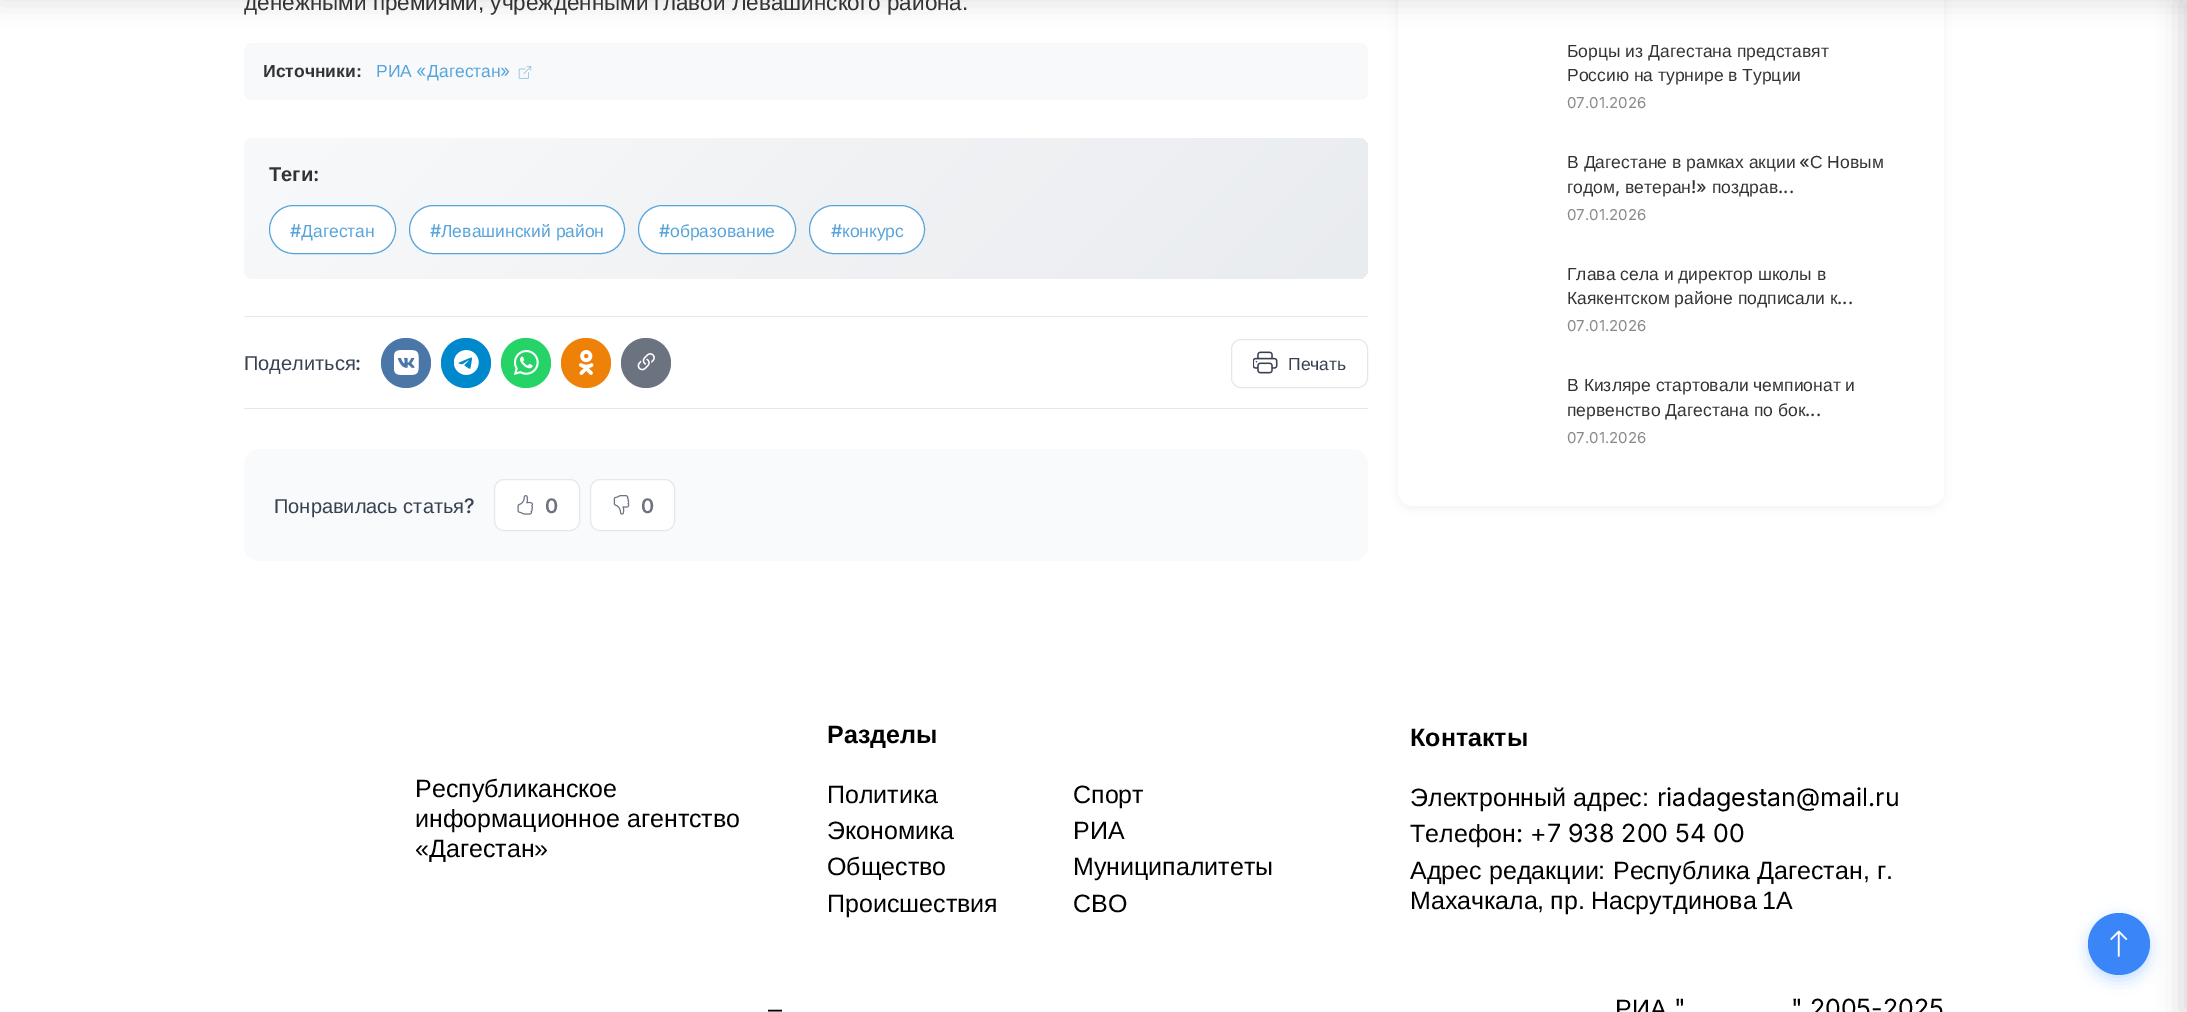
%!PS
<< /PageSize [2187 1012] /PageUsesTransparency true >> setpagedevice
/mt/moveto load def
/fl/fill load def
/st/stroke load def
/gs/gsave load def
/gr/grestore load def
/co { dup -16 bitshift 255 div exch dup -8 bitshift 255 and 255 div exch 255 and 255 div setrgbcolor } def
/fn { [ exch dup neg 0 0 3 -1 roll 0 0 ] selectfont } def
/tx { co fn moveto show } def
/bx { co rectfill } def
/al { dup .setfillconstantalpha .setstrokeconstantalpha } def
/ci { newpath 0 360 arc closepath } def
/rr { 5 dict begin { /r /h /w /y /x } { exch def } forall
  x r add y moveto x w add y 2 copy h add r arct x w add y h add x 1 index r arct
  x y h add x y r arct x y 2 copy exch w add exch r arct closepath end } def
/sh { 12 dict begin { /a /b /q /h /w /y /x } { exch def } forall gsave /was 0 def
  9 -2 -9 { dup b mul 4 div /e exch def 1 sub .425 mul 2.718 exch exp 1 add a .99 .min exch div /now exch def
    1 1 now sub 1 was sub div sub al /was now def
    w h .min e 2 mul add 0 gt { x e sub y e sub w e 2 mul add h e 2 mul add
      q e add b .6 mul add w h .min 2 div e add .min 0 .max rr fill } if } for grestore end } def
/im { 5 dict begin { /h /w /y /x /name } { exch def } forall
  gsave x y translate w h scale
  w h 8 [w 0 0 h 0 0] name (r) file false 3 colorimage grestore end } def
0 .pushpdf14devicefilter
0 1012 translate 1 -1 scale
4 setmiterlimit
0 0 2187 1012 16#FFFFFF bx
16#F8F9FA co
244 43 1124 57 8 rr fl
16#000000 co
1398 -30 546 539 15 5 .06 sh
16#FFFFFF co
1398 -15 546 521 15 rr fl
16#000000 co
0 -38 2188 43 0 12.5 .1 sh
(media/1.raw) 518 66 14 13 im
gs 244 138 1124 141 10 rr clip newpath
<< /ShadingType 2 /ColorSpace /DeviceRGB /Coords [489 -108 1122 524] /Extend [true true] /Function << /FunctionType 2 /Domain [0 1] /C0 [.973 .976 .98] /C1 [.914 .925 .937] /N 1 >> >> shfill gr
16#FFFFFF co
269.5 205.5 126 48 24 rr gs fl gr
16#57A4DB co
st
16#FFFFFF co
409.5 205.5 215 48 24 rr gs fl gr
16#57A4DB co
st
16#FFFFFF co
638.5 205.5 157 48 24 rr gs fl gr
16#57A4DB co
st
16#FFFFFF co
809.5 205.5 115 48 24 rr gs fl gr
16#57A4DB co
st
244 316 1124 1 16#E5E7EB bx
244 408 1124 1 16#E5E7EB bx
16#4A76A8 co
406 363 25 ci fl
(media/2.raw) 394 350 25 25 im
16#0088CC co
466 363 25 ci fl
(media/3.raw) 454 350 25 25 im
16#25D366 co
526 363 25 ci fl
(media/4.raw) 514 350 25 25 im
16#EE8208 co
586 363 25 ci fl
(media/5.raw) 579 350 15 25 im
16#6B7280 co
646 363 25 ci fl
(media/6.raw) 637 353 18 18 im
16#E5E7EB co
1231.5 339.5 136 48 9.5 rr st
(media/7.raw) 1253 351 25 23 im
16#F9FAFB co
244 449 1124 112 15 rr fl
16#FFFFFF co
494.5 479.5 85 51 9.5 rr gs fl gr
16#E5E7EB co
st
(media/8.raw) 517 495 16 20 im
16#FFFFFF co
590.5 479.5 84 51 9.5 rr gs fl gr
16#E5E7EB co
st
(media/9.raw) 613 495 17 20 im
16#3A86F8 co
2088 918 62 62 31 7.5 .3 sh
2119 944 31 ci fl
16#000000 co
2181 0 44 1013 0 12.5 .15 sh
(media/10.raw) 2110 930 18 27 im
(денежными премиями, учрежденными главой Левашинского района.) 244 10 /LiberationSans-Regular 22.5 16#333333 tx
(Источники:) 263 77 /LiberationSans-Bold 17.5 16#333333 tx
(РИА) 376 77 /LiberationSans-Regular 17.5 16#57A4DB tx
(«) 416 77 /Inter-Regular 17.5 16#57A4DB tx
(Дагестан) 427 77 /LiberationSans-Regular 17.5 16#57A4DB tx
(») 500 77 /Inter-Regular 17.5 16#57A4DB tx
(Теги) 269 181 /LiberationSans-Bold 20 16#333333 tx
(:) 313 181 /Inter-SemiBold 20 16#333333 tx
(#) 290 237 /Inter-Medium 17.5 16#57A4DB tx
(Дагестан) 301 237 /LiberationSans-Regular 17.5 16#57A4DB tx
(#) 430 237 /Inter-Medium 17.5 16#57A4DB tx
(Левашинский район) 441 237 /LiberationSans-Regular 17.5 16#57A4DB tx
(#) 659 237 /Inter-Medium 17.5 16#57A4DB tx
(образование) 670 237 /LiberationSans-Regular 17.5 16#57A4DB tx
(#) 831 237 /Inter-Medium 17.5 16#57A4DB tx
(конкурс) 842 237 /LiberationSans-Regular 17.5 16#57A4DB tx
(Поделиться) 244 370 /LiberationSans-Regular 20 16#374151 tx
(:) 355 370 /Inter-Medium 20 16#374151 tx
(Печать) 1288 370 /LiberationSans-Regular 17.5 16#374151 tx
(Понравилась статья) 274 513 /LiberationSans-Regular 20 16#374151 tx
(?) 464 513 /Inter-Medium 20 16#374151 tx
(0) 545 513 /Inter-SemiBold 20 16#6B7280 tx
(0) 641 513 /Inter-SemiBold 20 16#6B7280 tx
(Борцы из Дагестана представят) 1567 57 /LiberationSans-Regular 17.5 16#333333 tx
(Россию на турнире в Турции) 1567 81 /LiberationSans-Regular 17.5 16#333333 tx
(07.01.2026) 1567 108 /Inter-Regular 15 16#888888 tx
(В Дагестане в рамках акции) 1567 168 /LiberationSans-Regular 17.5 16#333333 tx
(«) 1799 168 /Inter-Medium 17.5 16#333333 tx
(С Новым) 1810 168 /LiberationSans-Regular 17.5 16#333333 tx
(годом) 1567 193 /LiberationSans-Regular 17.5 16#333333 tx
(,) 1615 193 /Inter-Medium 17.5 16#333333 tx
(ветеран) 1625 193 /LiberationSans-Regular 17.5 16#333333 tx
(!») 1691 193 /Inter-Medium 17.5 16#333333 tx
(поздрав) 1712 193 /LiberationSans-Regular 17.5 16#333333 tx
(...) 1778 193 /Inter-Medium 17.5 16#333333 tx
(07.01.2026) 1567 220 /Inter-Regular 15 16#888888 tx
(Глава села и директор школы в) 1567 280 /LiberationSans-Regular 17.5 16#333333 tx
(Каякентском районе подписали к) 1567 304 /LiberationSans-Regular 17.5 16#333333 tx
(...) 1837 304 /Inter-Medium 17.5 16#333333 tx
(07.01.2026) 1567 331 /Inter-Regular 15 16#888888 tx
(В Кизляре стартовали чемпионат и) 1567 391 /LiberationSans-Regular 17.5 16#333333 tx
(первенство Дагестана по бок) 1567 416 /LiberationSans-Regular 17.5 16#333333 tx
(...) 1805 416 /Inter-Medium 17.5 16#333333 tx
(07.01.2026) 1567 443 /Inter-Regular 15 16#888888 tx
(Республиканское) 415 797 /LiberationSans-Regular 25 16#000000 tx
(информационное агентство) 415 827 /LiberationSans-Regular 25 16#000000 tx
(«Дагестан») 415 857 /LiberationSans-Regular 25 16#000000 tx
(Разделы) 827 743 /LiberationSans-Bold 25 16#000000 tx
(Политика) 827 803 /LiberationSans-Regular 25 16#000000 tx
(Экономика) 827 839 /LiberationSans-Regular 25 16#000000 tx
(Общество) 827 875 /LiberationSans-Regular 25 16#000000 tx
(Происшествия) 827 912 /LiberationSans-Regular 25 16#000000 tx
(Спорт) 1073 803 /LiberationSans-Regular 25 16#000000 tx
(РИА) 1073 839 /LiberationSans-Regular 25 16#000000 tx
(Муниципалитеты) 1073 875 /LiberationSans-Regular 25 16#000000 tx
(СВО) 1073 912 /LiberationSans-Regular 25 16#000000 tx
(Контакты) 1410 746 /LiberationSans-Bold 25 16#000000 tx
(Электронный адрес:) 1410 806 /LiberationSans-Regular 25 16#000000 tx
(riadagestan@mail.ru) 1657 806 /Inter-Regular 25 16#000000 tx
(Телефон) 1410 842 /LiberationSans-Regular 25 16#000000 tx
(: +7 938 200 54 00) 1516 842 /Inter-Regular 25 16#000000 tx
/LiberationSans-Regular 25 fn
1410 879 mt .5 0 32 (Адрес редакции: Республика Дагестан, г.) widthshow
1410 909 mt -1 0 32 (Махачкала, пр. Насрутдинова 1А) widthshow
768 1017 mt 1 0 32 (–) widthshow
(РИА) 1615 1017 /LiberationSans-Regular 25 16#000000 tx
(") 1674 1017 /Inter-Regular 25 16#000000 tx
(" 2005-2025) 1791 1017 /Inter-Regular 25 16#000000 tx
.poppdf14devicefilter showpage
